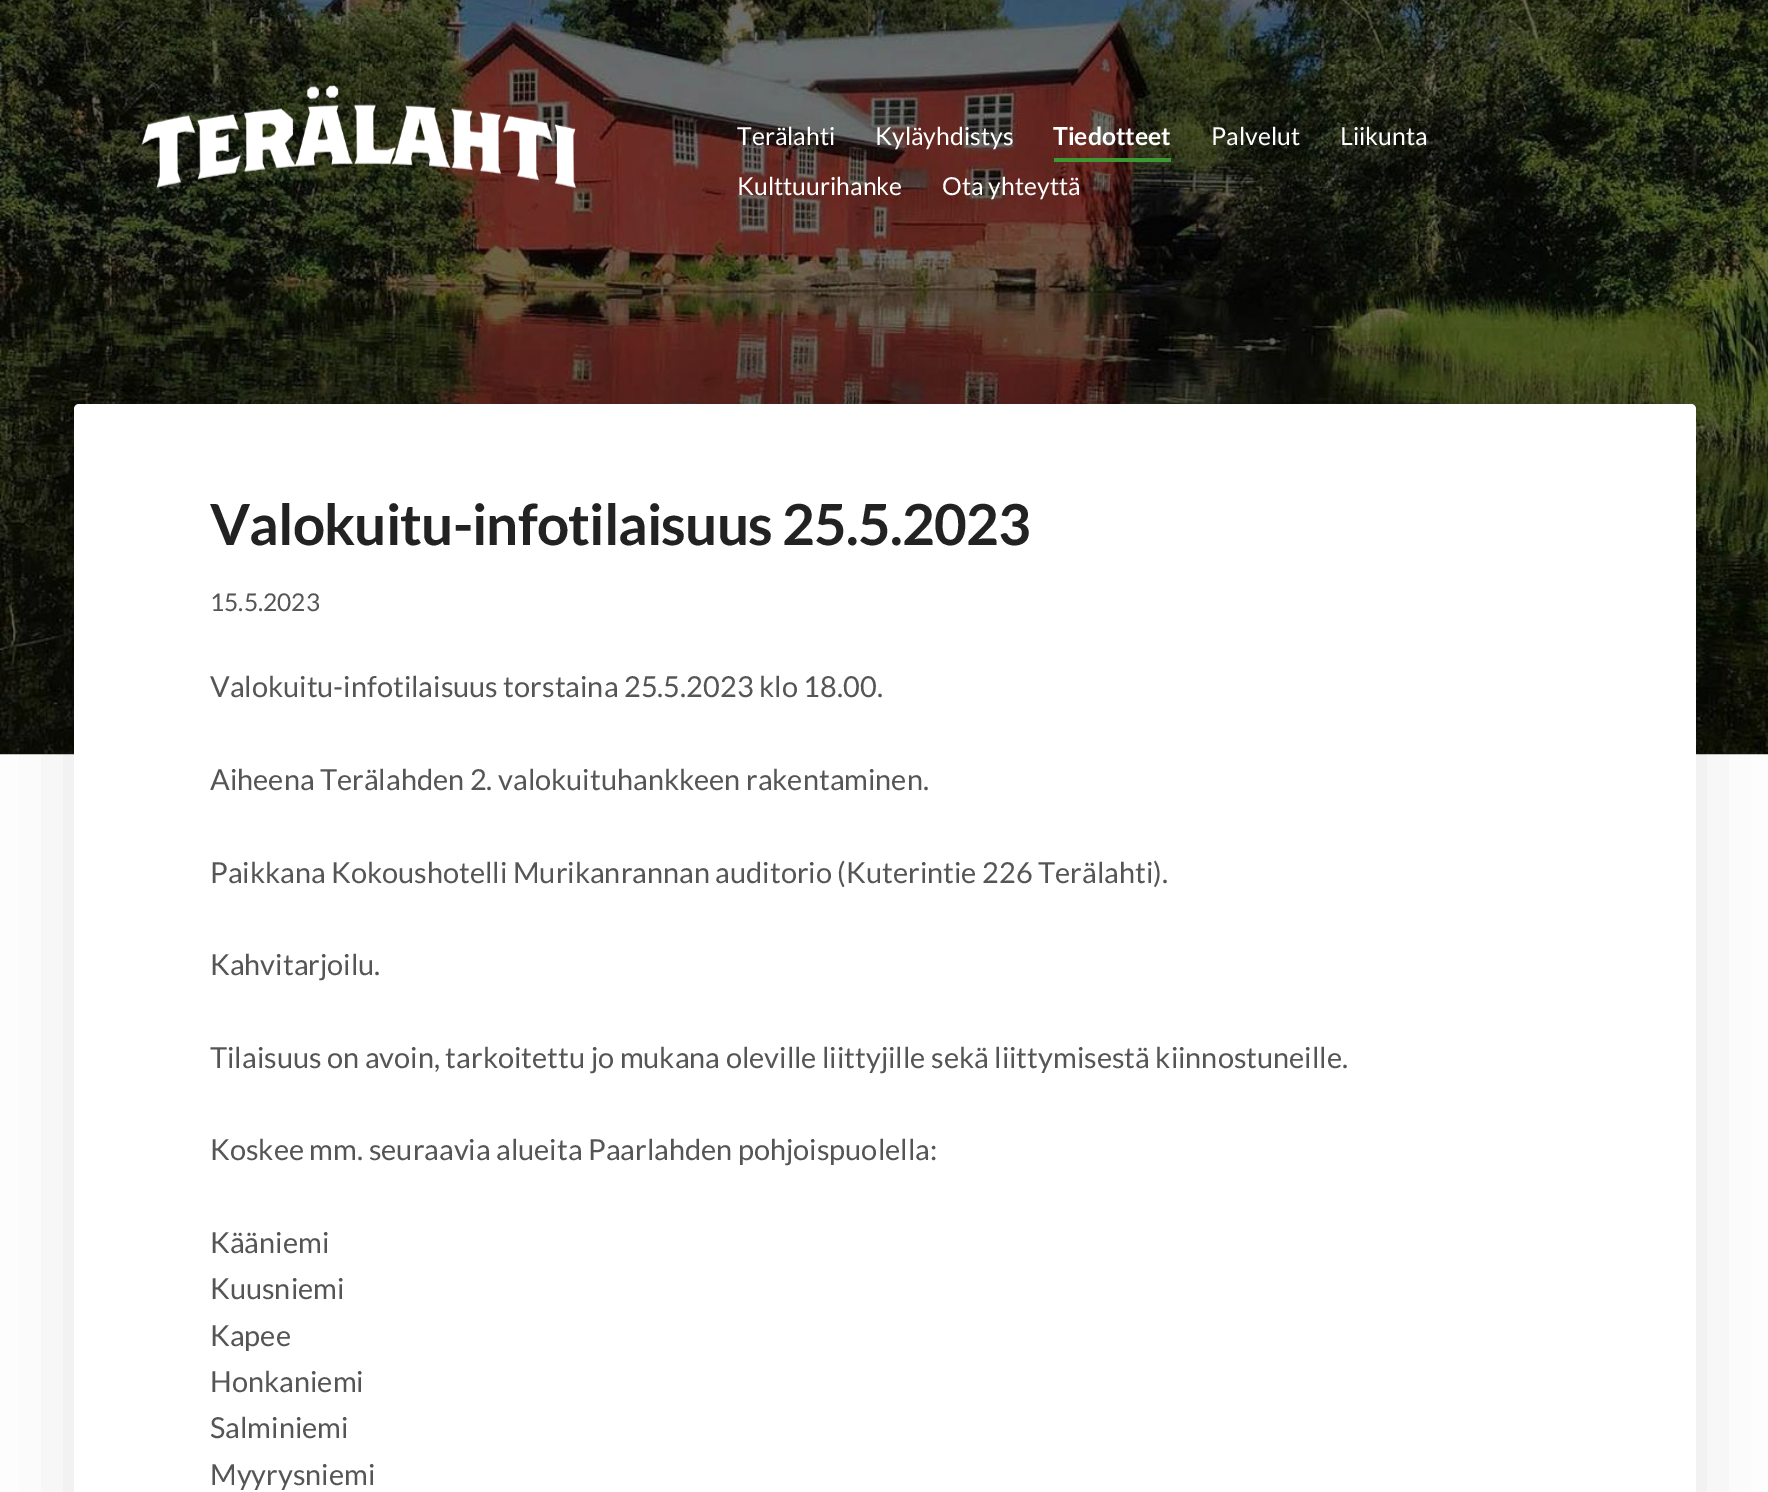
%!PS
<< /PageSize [1768 1492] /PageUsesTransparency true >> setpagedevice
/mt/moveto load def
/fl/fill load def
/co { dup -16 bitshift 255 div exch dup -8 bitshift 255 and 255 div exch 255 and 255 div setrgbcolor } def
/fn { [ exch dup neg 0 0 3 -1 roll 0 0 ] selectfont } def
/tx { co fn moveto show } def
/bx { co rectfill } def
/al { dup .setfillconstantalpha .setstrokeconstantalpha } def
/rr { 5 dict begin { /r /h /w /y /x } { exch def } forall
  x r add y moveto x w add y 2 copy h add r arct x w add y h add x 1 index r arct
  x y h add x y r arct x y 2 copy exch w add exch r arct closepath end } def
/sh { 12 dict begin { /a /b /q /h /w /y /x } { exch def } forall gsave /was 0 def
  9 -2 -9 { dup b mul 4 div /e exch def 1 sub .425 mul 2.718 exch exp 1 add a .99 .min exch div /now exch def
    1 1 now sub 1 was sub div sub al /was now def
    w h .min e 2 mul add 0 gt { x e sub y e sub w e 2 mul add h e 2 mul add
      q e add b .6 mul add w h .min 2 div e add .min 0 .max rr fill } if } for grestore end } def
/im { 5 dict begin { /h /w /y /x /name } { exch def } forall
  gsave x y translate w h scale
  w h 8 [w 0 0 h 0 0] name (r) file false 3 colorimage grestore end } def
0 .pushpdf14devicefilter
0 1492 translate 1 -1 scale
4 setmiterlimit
0 0 1768 1492 16#FFFFFF bx
(media/1.raw) 0 0 1768 755 im
(media/2.raw) 141 85 435 103 im
1054 158 117 4 16#3C9934 bx
16#000000 co
74 317 1622 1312 5 44 .1 sh
16#FFFFFF co
74 404 1622 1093 5 rr fl
(Terälahti) 737 145 /Lato-Regular 24.75 16#FFFFFF tx
(Kyläyhdistys) 875 145 /Lato-Regular 24.75 16#FFFFFF tx
(Tiedotteet) 1053 145 /Lato-Bold 24.75 16#FFFFFF tx
(Palvelut) 1211 145 /Lato-Regular 24.75 16#FFFFFF tx
(Liikunta) 1340 145 /Lato-Regular 24.75 16#FFFFFF tx
(Kulttuurihanke) 737 195 /Lato-Regular 24.75 16#FFFFFF tx
(Ota yhteyttä) 942 195 /Lato-Regular 24.75 16#FFFFFF tx
/Lato-Bold 56.6 fn
16#222222 co
210 545 mt -.85 0 (Valokuitu-infotilaisuus 25.5.2023) ashow
(15.5.2023) 210 611 /Lato-Regular 24.5 16#555555 tx
(Valokuitu-infotilaisuus torstaina 25.5.2023 klo 18.00.) 210 697 /Lato-Regular 28.95 16#555555 tx
(Aiheena Terälahden 2. valokuituhankkeen rakentaminen.) 210 790 /Lato-Regular 28.95 16#555555 tx
(Paikkana Kokoushotelli Murikanrannan auditorio \(Kuterintie 226 Terälahti\).) 210 883 /Lato-Regular 28.95 16#555555 tx
(Kahvitarjoilu.) 210 975 /Lato-Regular 28.95 16#555555 tx
(Tilaisuus on avoin, tarkoitettu jo mukana oleville liittyjille sekä liittymisestä kiinnostuneille.) 210 1068 /Lato-Regular 28.95 16#555555 tx
(Koskee mm. seuraavia alueita Paarlahden pohjoispuolella:) 210 1160 /Lato-Regular 28.95 16#555555 tx
(Kääniemi) 210 1253 /Lato-Regular 28.95 16#555555 tx
(Kuusniemi) 210 1299 /Lato-Regular 28.95 16#555555 tx
(Kapee) 210 1346 /Lato-Regular 28.95 16#555555 tx
(Honkaniemi) 210 1392 /Lato-Regular 28.95 16#555555 tx
(Salminiemi) 210 1438 /Lato-Regular 28.95 16#555555 tx
(Myyrysniemi) 210 1485 /Lato-Regular 28.95 16#555555 tx
.poppdf14devicefilter showpage
